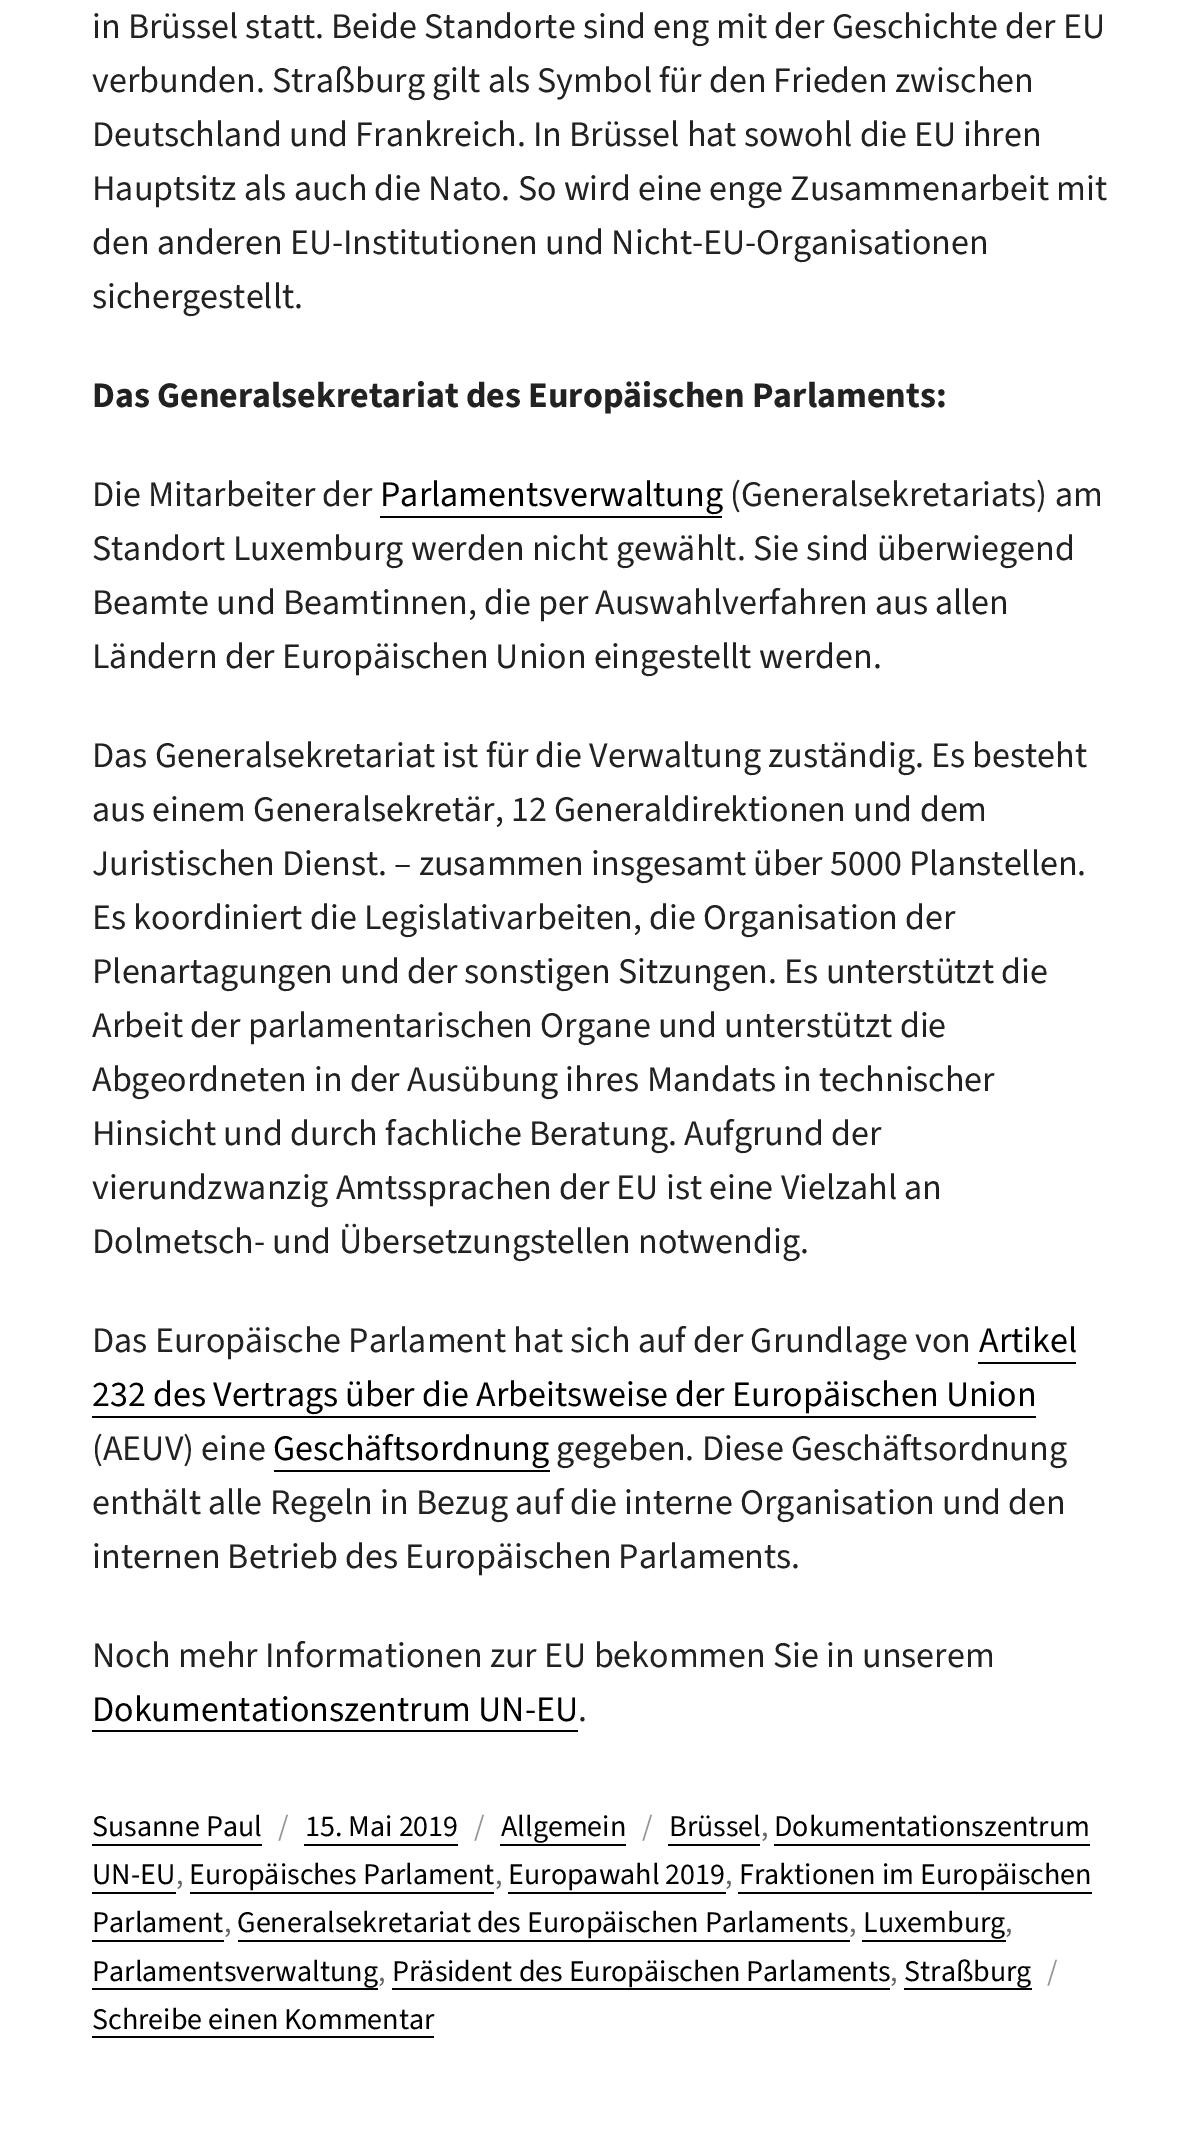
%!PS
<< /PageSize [1200 2143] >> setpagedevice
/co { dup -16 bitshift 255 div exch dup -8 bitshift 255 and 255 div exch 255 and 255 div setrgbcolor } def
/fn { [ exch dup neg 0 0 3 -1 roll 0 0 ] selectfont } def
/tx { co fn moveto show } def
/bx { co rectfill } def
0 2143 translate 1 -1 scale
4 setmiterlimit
0 0 1200 2143 16#FFFFFF bx
380 516 342 2 16#000000 bx
978 1362 98 2 16#000000 bx
92 1416 944 2 16#000000 bx
274 1470 276 2 16#000000 bx
92 1730 486 2 16#000000 bx
92 1844 170 2 16#000000 bx
668 1844 92 2 16#000000 bx
774 1844 316 2 16#000000 bx
92 1892 84 2 16#000000 bx
190 1892 304 2 16#000000 bx
508 1892 218 2 16#000000 bx
738 1892 354 2 16#000000 bx
92 1940 132 2 16#000000 bx
238 1940 612 2 16#000000 bx
862 1940 144 2 16#000000 bx
92 1988 286 2 16#000000 bx
392 1988 498 2 16#000000 bx
904 1988 128 2 16#000000 bx
304 1844 154 2 16#000000 bx
500 1844 126 2 16#000000 bx
92 2036 342 2 16#000000 bx
(in Brüssel statt. Beide Standorte sind eng mit der Geschichte der EU) 92 38 /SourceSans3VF-Regular 36 16#222222 tx
(verbunden. Straßburg gilt als Symbol für den Frieden zwischen) 92 92 /SourceSans3VF-Regular 36 16#222222 tx
(Deutschland und Frankreich. In Brüssel hat sowohl die EU ihren) 92 146 /SourceSans3VF-Regular 36 16#222222 tx
(Hauptsitz als auch die Nato. So wird eine enge Zusammenarbeit mit) 92 200 /SourceSans3VF-Regular 36 16#222222 tx
(den anderen EU-Institutionen und Nicht-EU-Organisationen) 92 254 /SourceSans3VF-Regular 36 16#222222 tx
(sichergestellt.) 92 308 /SourceSans3VF-Regular 36 16#222222 tx
(Das Generalsekretariat des Europäischen Parlaments:) 92 407 /SourceSans3VF-Bold 36 16#222222 tx
(Die Mitarbeiter der) 92 506 /SourceSans3VF-Regular 36 16#222222 tx
(Parlamentsverwaltung) 380 506 /SourceSans3VF-Regular 36 16#000000 tx
(\(Generalsekretariats\) am) 730 506 /SourceSans3VF-Regular 36 16#222222 tx
(Standort Luxemburg werden nicht gewählt. Sie sind überwiegend) 92 560 /SourceSans3VF-Regular 36 16#222222 tx
(Beamte und Beamtinnen, die per Auswahlverfahren aus allen) 92 614 /SourceSans3VF-Regular 36 16#222222 tx
(Ländern der Europäischen Union eingestellt werden.) 92 668 /SourceSans3VF-Regular 36 16#222222 tx
(Das Generalsekretariat ist für die Verwaltung zuständig. Es besteht) 92 767 /SourceSans3VF-Regular 36 16#222222 tx
(aus einem Generalsekretär, 12 Generaldirektionen und dem) 92 821 /SourceSans3VF-Regular 36 16#222222 tx
(Juristischen Dienst. – zusammen insgesamt über 5000 Planstellen.) 92 875 /SourceSans3VF-Regular 36 16#222222 tx
(Es koordiniert die Legislativarbeiten, die Organisation der) 92 929 /SourceSans3VF-Regular 36 16#222222 tx
(Plenartagungen und der sonstigen Sitzungen. Es unterstützt die) 92 983 /SourceSans3VF-Regular 36 16#222222 tx
(Arbeit der parlamentarischen Organe und unterstützt die) 92 1037 /SourceSans3VF-Regular 36 16#222222 tx
(Abgeordneten in der Ausübung ihres Mandats in technischer) 92 1091 /SourceSans3VF-Regular 36 16#222222 tx
(Hinsicht und durch fachliche Beratung. Aufgrund der) 92 1145 /SourceSans3VF-Regular 36 16#222222 tx
(vierundzwanzig Amtssprachen der EU ist eine Vielzahl an) 92 1199 /SourceSans3VF-Regular 36 16#222222 tx
(Dolmetsch- und Übersetzungstellen notwendig.) 92 1253 /SourceSans3VF-Regular 36 16#222222 tx
(Das Europäische Parlament hat sich auf der Grundlage von) 92 1352 /SourceSans3VF-Regular 36 16#222222 tx
(Artikel) 979 1352 /SourceSans3VF-Regular 36 16#000000 tx
(232 des Vertrags über die Arbeitsweise der Europäischen Union) 92 1406 /SourceSans3VF-Regular 36 16#000000 tx
(\(AEUV\) eine) 92 1460 /SourceSans3VF-Regular 36 16#222222 tx
(Geschäftsordnung) 273 1460 /SourceSans3VF-Regular 36 16#000000 tx
(gegeben. Diese Geschäftsordnung) 556 1460 /SourceSans3VF-Regular 36 16#222222 tx
(enthält alle Regeln in Bezug auf die interne Organisation und den) 92 1514 /SourceSans3VF-Regular 36 16#222222 tx
(internen Betrieb des Europäischen Parlaments.) 92 1568 /SourceSans3VF-Regular 36 16#222222 tx
(Noch mehr Informationen zur EU bekommen Sie in unserem) 92 1667 /SourceSans3VF-Regular 36 16#222222 tx
(Dokumentationszentrum UN-EU) 92 1721 /SourceSans3VF-Regular 36 16#000000 tx
(.) 578 1721 /SourceSans3VF-Regular 36 16#222222 tx
(Susanne Paul) 92 1836 /SourceSans3VF-Regular 30 16#000000 tx
(/) 278 1836 /SourceSans3VF-Regular 30 16#959595 tx
(Brüssel) 669 1836 /SourceSans3VF-Regular 30 16#000000 tx
(,) 761 1836 /SourceSans3VF-Regular 30 16#686868 tx
(Dokumentationszentrum) 774 1836 /SourceSans3VF-Regular 30 16#000000 tx
(UN-EU) 92 1884 /SourceSans3VF-Regular 30 16#000000 tx
(,) 176 1884 /SourceSans3VF-Regular 30 16#686868 tx
(Europäisches Parlament) 189 1884 /SourceSans3VF-Regular 30 16#000000 tx
(,) 495 1884 /SourceSans3VF-Regular 30 16#686868 tx
(Europawahl 2019) 508 1884 /SourceSans3VF-Regular 30 16#000000 tx
(,) 725 1884 /SourceSans3VF-Regular 30 16#686868 tx
(Fraktionen im Europäischen) 739 1884 /SourceSans3VF-Regular 30 16#000000 tx
(Parlament) 92 1932 /SourceSans3VF-Regular 30 16#000000 tx
(,) 224 1932 /SourceSans3VF-Regular 30 16#686868 tx
(Generalsekretariat des Europäischen Parlaments) 237 1932 /SourceSans3VF-Regular 30 16#000000 tx
(,) 849 1932 /SourceSans3VF-Regular 30 16#686868 tx
(Luxemburg) 863 1932 /SourceSans3VF-Regular 30 16#000000 tx
(,) 1005 1932 /SourceSans3VF-Regular 30 16#686868 tx
(Parlamentsverwaltung) 92 1981 /SourceSans3VF-Regular 30 16#000000 tx
(,) 378 1981 /SourceSans3VF-Regular 30 16#686868 tx
(Präsident des Europäischen Parlaments) 392 1981 /SourceSans3VF-Regular 30 16#000000 tx
(,) 890 1981 /SourceSans3VF-Regular 30 16#686868 tx
(Straßburg) 904 1981 /SourceSans3VF-Regular 30 16#000000 tx
(/) 1047 1981 /SourceSans3VF-Regular 30 16#959595 tx
(15. Mai 2019) 305 1836 /SourceSans3VF-Regular 30 16#000000 tx
(/) 474 1836 /SourceSans3VF-Regular 30 16#959595 tx
(Allgemein) 501 1836 /SourceSans3VF-Regular 30 16#000000 tx
(/) 642 1836 /SourceSans3VF-Regular 30 16#959595 tx
(Schreibe einen Kommentar) 92 2029 /SourceSans3VF-Regular 30 16#000000 tx
showpage
